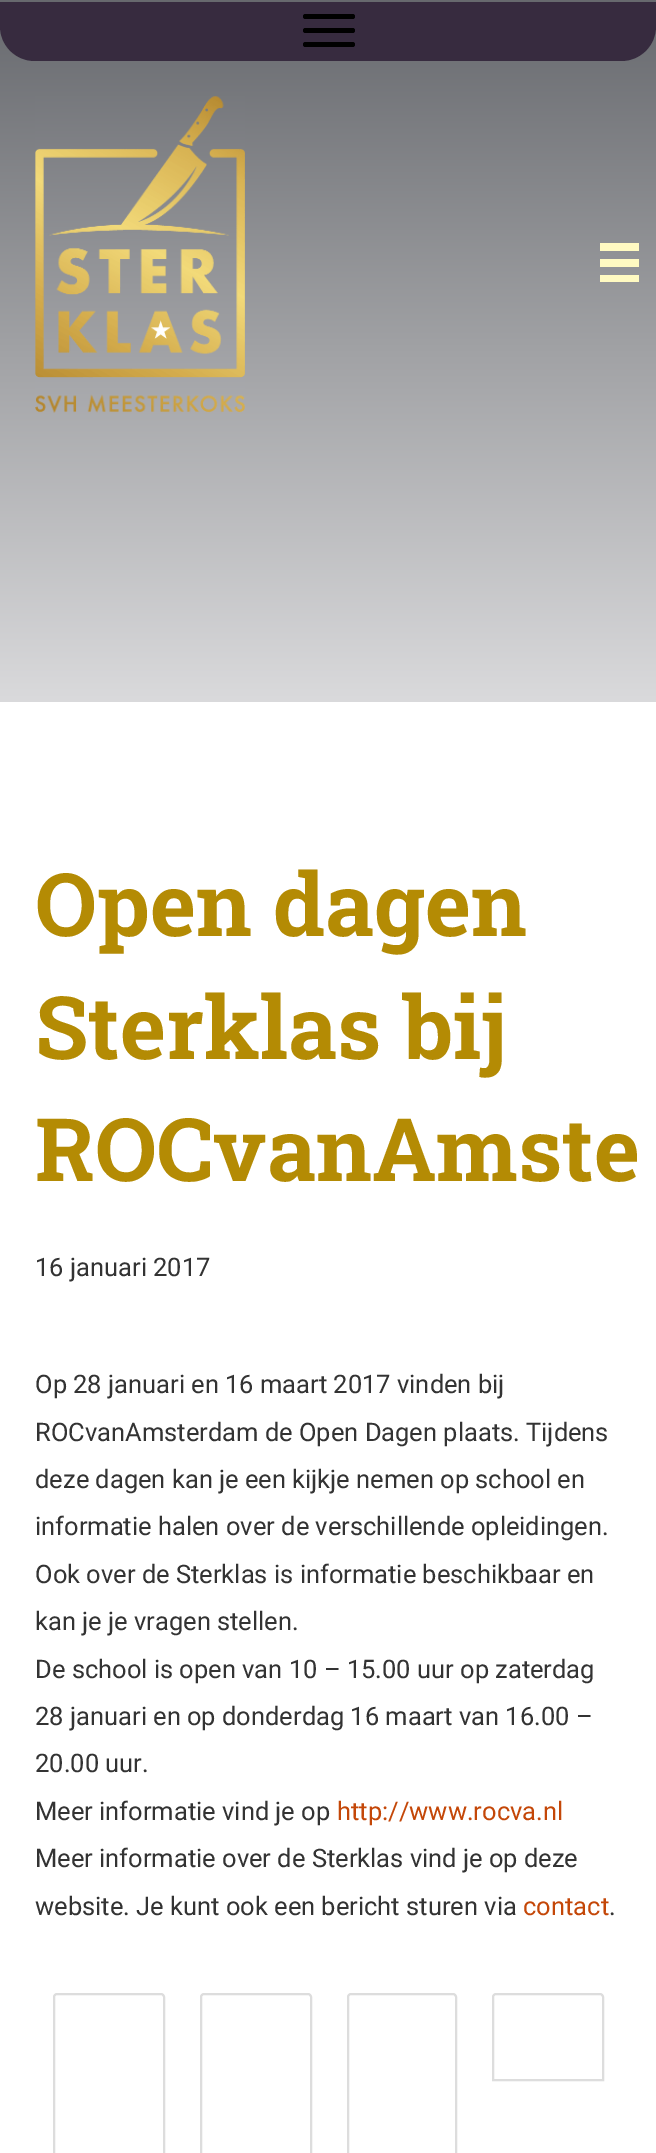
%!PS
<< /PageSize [656 2153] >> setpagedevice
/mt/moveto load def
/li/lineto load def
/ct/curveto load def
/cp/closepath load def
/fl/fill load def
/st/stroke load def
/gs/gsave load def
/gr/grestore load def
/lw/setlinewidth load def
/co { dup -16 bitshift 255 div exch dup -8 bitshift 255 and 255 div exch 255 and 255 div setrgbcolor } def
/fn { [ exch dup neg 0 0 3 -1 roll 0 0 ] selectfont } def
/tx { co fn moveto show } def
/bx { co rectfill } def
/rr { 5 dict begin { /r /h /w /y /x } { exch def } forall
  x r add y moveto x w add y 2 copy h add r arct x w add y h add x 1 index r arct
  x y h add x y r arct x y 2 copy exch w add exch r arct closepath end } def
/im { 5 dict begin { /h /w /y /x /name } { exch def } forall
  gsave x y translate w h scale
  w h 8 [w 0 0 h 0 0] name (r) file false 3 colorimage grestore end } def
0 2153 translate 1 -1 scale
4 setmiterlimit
0 0 656 2153 16#FFFFFF bx
gs 0 0 mt 656 0 li 656 702 li 0 702 li cp clip newpath
<< /ShadingType 2 /ColorSpace /DeviceRGB /Coords [328 702 328 0] /Extend [true true] /Function << /FunctionType 2 /Domain [0 1] /C0 [.855 .855 .863] /C1 [.404 .412 .431] /N 1 >> >> shfill gr
16#372B3F co
0 2 mt 656 2 li 656 26 li 656 45.5 640.5 61 621 61 ct 35 61 li 15.5 61 0 45.5 0 26 ct cp fl
16#000000 co
303 28 52 5 2.5 rr fl
303 14 52 5 2.5 rr fl
303 42 52 5 2.5 rr fl
(media/1.raw) 35 96 210 317 im
600 243 39 8 16#FFFAC2 bx
600 259 39 8 16#FFFAC2 bx
600 275 39 7 16#FFFAC2 bx
16#DDDDDD co
2 lw
57 1994 mt 161 1994 li 162.5 1994 164 1995.5 164 1997 ct 164 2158 li 54 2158 li 54 1997 li 54 1995.5 55.5 1994 57 1994 ct cp st
204 1994 mt 308 1994 li 309.5 1994 311 1995.5 311 1997 ct 311 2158 li 201 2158 li 201 1997 li 201 1995.5 202.5 1994 204 1994 ct cp st
351 1994 mt 453 1994 li 454.5 1994 456 1995.5 456 1997 ct 456 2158 li 348 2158 li 348 1997 li 348 1995.5 349.5 1994 351 1994 ct cp st
496 1994 mt 600 1994 li 601.5 1994 603 1995.5 603 1997 ct 603 2080 li 493 2080 li 493 1997 li 493 1995.5 494.5 1994 496 1994 ct cp st
(Open dagen) 35 936 /RobotoSlab-Bold 87.5 16#B48B04 tx
(Sterklas bij) 35 1059 /RobotoSlab-Bold 87.5 16#B48B04 tx
(ROCvanAmste) 35 1181 /RobotoSlab-Bold 87.5 16#B48B04 tx
(16 januari 2017) 35 1276 /Roboto-Regular 25.5 16#333333 tx
(Op 28 januari en 16 maart 2017 vinden bij) 35 1393 /Roboto-Regular 25.5 16#333333 tx
(ROCvanAmsterdam de Open Dagen plaats. Tijdens) 35 1441 /Roboto-Regular 25.5 16#333333 tx
(deze dagen kan je een kijkje nemen op school en) 35 1488 /Roboto-Regular 25.5 16#333333 tx
(informatie halen over de verschillende opleidingen.) 35 1535 /Roboto-Regular 25.5 16#333333 tx
(Ook over de Sterklas is informatie beschikbaar en) 35 1583 /Roboto-Regular 25.5 16#333333 tx
(kan je je vragen stellen.) 35 1630 /Roboto-Regular 25.5 16#333333 tx
(De school is open van 10 – 15.00 uur op zaterdag) 35 1678 /Roboto-Regular 25.5 16#333333 tx
(28 januari en op donderdag 16 maart van 16.00 –) 35 1725 /Roboto-Regular 25.5 16#333333 tx
(20.00 uur.) 35 1772 /Roboto-Regular 25.5 16#333333 tx
(Meer informatie vind je op) 35 1820 /Roboto-Regular 25.5 16#333333 tx
(http://www.rocva.nl) 337 1820 /Roboto-Regular 25.5 16#C44708 tx
(Meer informatie over de Sterklas vind je op deze) 35 1867 /Roboto-Regular 25.5 16#333333 tx
(website. Je kunt ook een bericht sturen via) 35 1915 /Roboto-Regular 25.5 16#333333 tx
(contact) 523 1915 /Roboto-Regular 25.5 16#C44708 tx
(.) 609 1915 /Roboto-Regular 25.5 16#333333 tx
showpage
